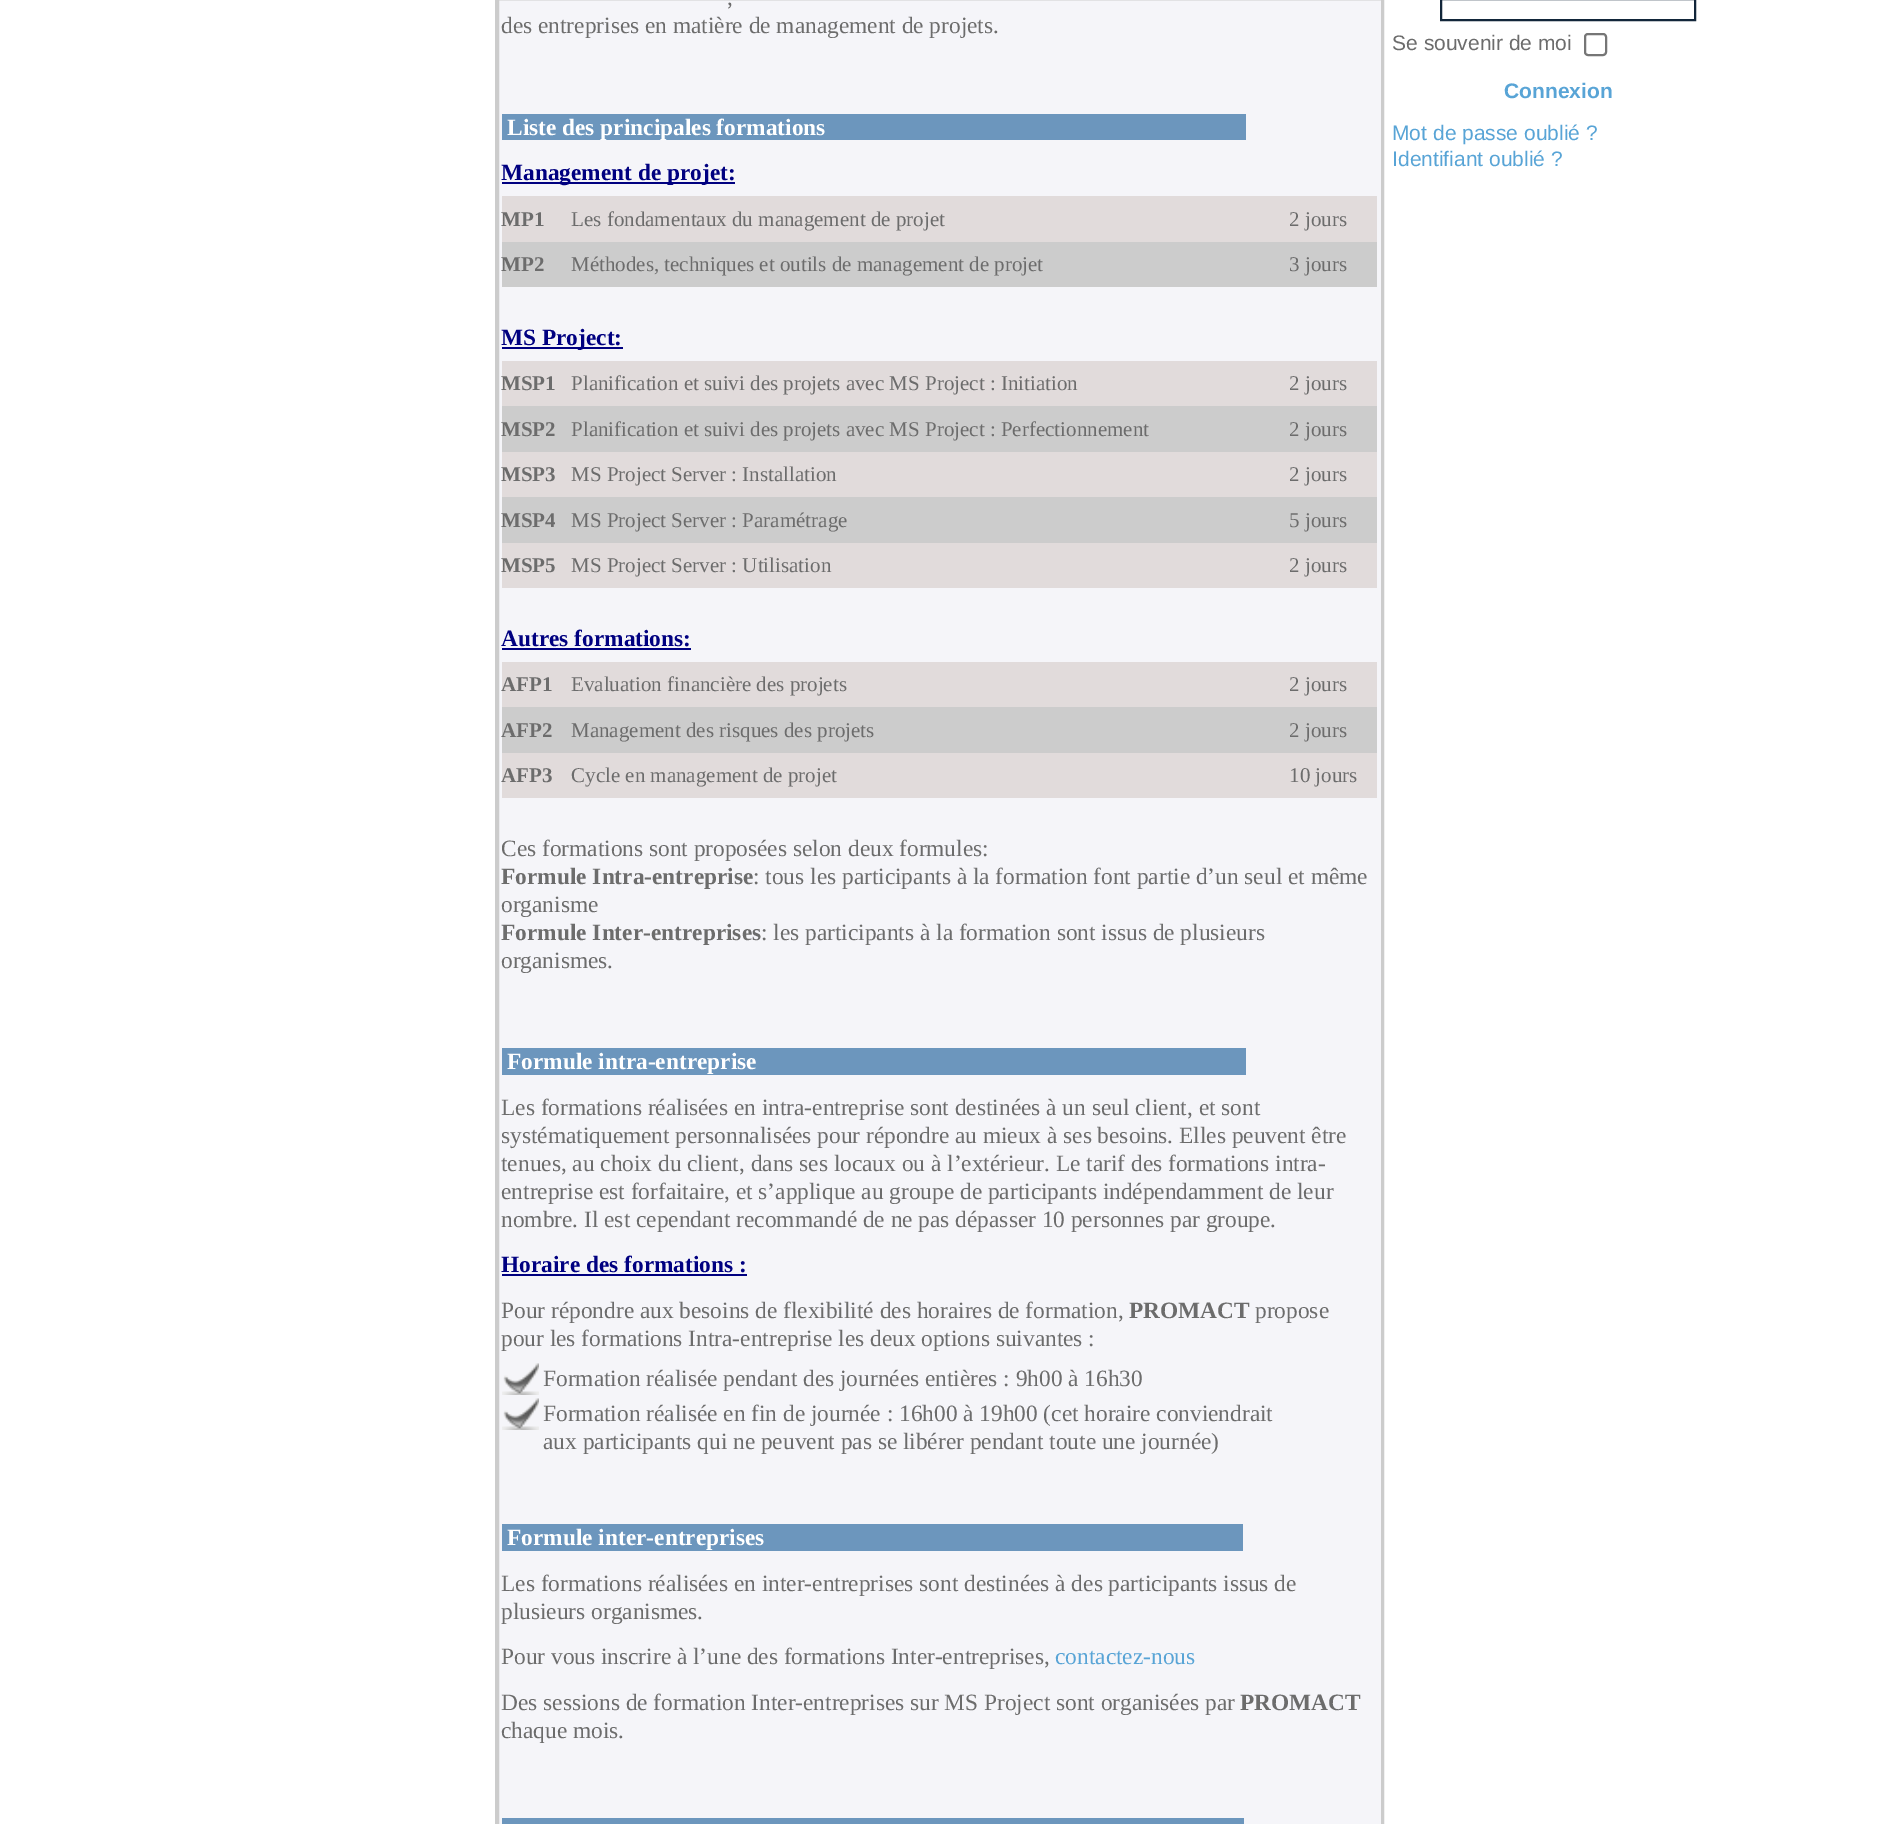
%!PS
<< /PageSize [1895 1824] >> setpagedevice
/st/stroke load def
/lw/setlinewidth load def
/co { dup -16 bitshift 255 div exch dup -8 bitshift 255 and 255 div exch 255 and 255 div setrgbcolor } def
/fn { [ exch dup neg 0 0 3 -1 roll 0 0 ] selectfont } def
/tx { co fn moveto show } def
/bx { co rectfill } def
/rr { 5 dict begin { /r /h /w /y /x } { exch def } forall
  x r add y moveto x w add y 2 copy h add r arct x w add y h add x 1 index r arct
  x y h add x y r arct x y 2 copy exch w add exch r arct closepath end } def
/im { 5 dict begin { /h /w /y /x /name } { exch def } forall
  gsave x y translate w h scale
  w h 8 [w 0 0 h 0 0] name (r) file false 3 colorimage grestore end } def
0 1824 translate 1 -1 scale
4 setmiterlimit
0 0 1895 1824 16#FFFFFF bx
499 0 882 1824 16#F5F5F9 bx
16#CCCCCC co
2 lw
496 -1 887 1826 rectstroke
498 -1 884 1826 rectstroke
502 114 744 26 16#6C96BD bx
502 182 233 2 16#000080 bx
502 196 875 46 16#E1DBDB bx
502 242 875 45 16#CCCCCC bx
502 347 121 2 16#000080 bx
502 361 875 45 16#E1DBDB bx
502 406 875 46 16#CCCCCC bx
502 452 875 45 16#E1DBDB bx
502 497 875 46 16#CCCCCC bx
502 543 875 45 16#E1DBDB bx
502 648 189 2 16#000080 bx
502 662 875 45 16#E1DBDB bx
502 707 875 46 16#CCCCCC bx
502 753 875 45 16#E1DBDB bx
502 1048 744 27 16#6C96BD bx
502 1274 245 2 16#000080 bx
(media/1.raw) 502 1363 37 32 im
(media/1.raw) 502 1398 37 32 im
502 1524 741 27 16#6C96BD bx
502 1818 742 6 16#6C96BD bx
16#12263A co
1441 -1 254 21 rectstroke
16#767676 co
1585 34 21 21 3 rr st
(,) 727 5 /LiberationSerif-Regular 23.35 16#6C6C6C tx
(des entreprises en matière de management de projets.) 501 33 /LiberationSerif-Regular 23.35 16#6C6C6C tx
(Liste des principales formations) 507 135 /LiberationSerif-Bold 23.35 16#FFFFFF tx
(Management de projet:) 501 180 /LiberationSerif-Bold 23.35 16#000080 tx
(MP1) 501 226 /LiberationSerif-Bold 21 16#6C6C6C tx
(Les fondamentaux du management de projet) 571 226 /LiberationSerif-Regular 21 16#6C6C6C tx
(2 jours) 1289 226 /LiberationSerif-Regular 21 16#6C6C6C tx
(MP2) 501 271 /LiberationSerif-Bold 21 16#6C6C6C tx
(Méthodes, techniques et outils de management de projet) 571 271 /LiberationSerif-Regular 21 16#6C6C6C tx
(3 jours) 1289 271 /LiberationSerif-Regular 21 16#6C6C6C tx
(MS Project:) 501 345 /LiberationSerif-Bold 23.35 16#000080 tx
(MSP1) 501 390 /LiberationSerif-Bold 21 16#6C6C6C tx
(Planification et suivi des projets avec MS Project : Initiation) 571 390 /LiberationSerif-Regular 21 16#6C6C6C tx
(2 jours) 1289 390 /LiberationSerif-Regular 21 16#6C6C6C tx
(MSP2) 501 436 /LiberationSerif-Bold 21 16#6C6C6C tx
(Planification et suivi des projets avec MS Project : Perfectionnement) 571 436 /LiberationSerif-Regular 21 16#6C6C6C tx
(2 jours) 1289 436 /LiberationSerif-Regular 21 16#6C6C6C tx
(MSP3) 501 481 /LiberationSerif-Bold 21 16#6C6C6C tx
(MS Project Server : Installation) 571 481 /LiberationSerif-Regular 21 16#6C6C6C tx
(2 jours) 1289 481 /LiberationSerif-Regular 21 16#6C6C6C tx
(MSP4) 501 527 /LiberationSerif-Bold 21 16#6C6C6C tx
(MS Project Server : Paramétrage) 571 527 /LiberationSerif-Regular 21 16#6C6C6C tx
(5 jours) 1289 527 /LiberationSerif-Regular 21 16#6C6C6C tx
(MSP5) 501 572 /LiberationSerif-Bold 21 16#6C6C6C tx
(MS Project Server : Utilisation) 571 572 /LiberationSerif-Regular 21 16#6C6C6C tx
(2 jours) 1289 572 /LiberationSerif-Regular 21 16#6C6C6C tx
(Autres formations:) 501 646 /LiberationSerif-Bold 23.35 16#000080 tx
(AFP1) 501 691 /LiberationSerif-Bold 21 16#6C6C6C tx
(Evaluation financière des projets) 571 691 /LiberationSerif-Regular 21 16#6C6C6C tx
(2 jours) 1289 691 /LiberationSerif-Regular 21 16#6C6C6C tx
(AFP2) 501 737 /LiberationSerif-Bold 21 16#6C6C6C tx
(Management des risques des projets) 571 737 /LiberationSerif-Regular 21 16#6C6C6C tx
(2 jours) 1289 737 /LiberationSerif-Regular 21 16#6C6C6C tx
(AFP3) 501 782 /LiberationSerif-Bold 21 16#6C6C6C tx
(Cycle en management de projet) 571 782 /LiberationSerif-Regular 21 16#6C6C6C tx
(10 jours) 1289 782 /LiberationSerif-Regular 21 16#6C6C6C tx
(Ces formations sont proposées selon deux formules:) 501 856 /LiberationSerif-Regular 23.35 16#6C6C6C tx
(Formule Intra-entreprise) 501 884 /LiberationSerif-Bold 23.35 16#6C6C6C tx
(: tous les participants à la formation font partie d’un seul et même) 753 884 /LiberationSerif-Regular 23.35 16#6C6C6C tx
(organisme) 501 912 /LiberationSerif-Regular 23.35 16#6C6C6C tx
(Formule Inter-entreprises) 501 940 /LiberationSerif-Bold 23.35 16#6C6C6C tx
(: les participants à la formation sont issus de plusieurs) 761 940 /LiberationSerif-Regular 23.35 16#6C6C6C tx
(organismes.) 501 968 /LiberationSerif-Regular 23.35 16#6C6C6C tx
(Formule intra-entreprise) 507 1069 /LiberationSerif-Bold 23.35 16#FFFFFF tx
(Les formations réalisées en intra-entreprise sont destinées à un seul client, et sont) 501 1115 /LiberationSerif-Regular 23.35 16#6C6C6C tx
(systématiquement personnalisées pour répondre au mieux à ses besoins. Elles peuvent être) 501 1143 /LiberationSerif-Regular 23.35 16#6C6C6C tx
(tenues, au choix du client, dans ses locaux ou à l’extérieur. Le tarif des formations intra-) 501 1171 /LiberationSerif-Regular 23.35 16#6C6C6C tx
(entreprise est forfaitaire, et s’applique au groupe de participants indépendamment de leur) 501 1199 /LiberationSerif-Regular 23.35 16#6C6C6C tx
(nombre. Il est cependant recommandé de ne pas dépasser 10 personnes par groupe.) 501 1227 /LiberationSerif-Regular 23.35 16#6C6C6C tx
(Horaire des formations :) 501 1272 /LiberationSerif-Bold 23.35 16#000080 tx
(Pour répondre aux besoins de flexibilité des horaires de formation,) 501 1318 /LiberationSerif-Regular 23.35 16#6C6C6C tx
(PROMACT) 1129 1318 /LiberationSerif-Bold 23.35 16#6C6C6C tx
(propose) 1255 1318 /LiberationSerif-Regular 23.35 16#6C6C6C tx
(pour les formations Intra-entreprise les deux options suivantes :) 501 1346 /LiberationSerif-Regular 23.35 16#6C6C6C tx
(Formation réalisée pendant des journées entières : 9h00 à 16h30) 543 1386 /LiberationSerif-Regular 23.35 16#6C6C6C tx
(Formation réalisée en fin de journée : 16h00 à 19h00 \(cet horaire conviendrait) 543 1421 /LiberationSerif-Regular 23.35 16#6C6C6C tx
(aux participants qui ne peuvent pas se libérer pendant toute une journée\)) 543 1449 /LiberationSerif-Regular 23.35 16#6C6C6C tx
(Formule inter-entreprises) 507 1545 /LiberationSerif-Bold 23.35 16#FFFFFF tx
(Les formations réalisées en inter-entreprises sont destinées à des participants issus de) 501 1591 /LiberationSerif-Regular 23.35 16#6C6C6C tx
(plusieurs organismes.) 501 1619 /LiberationSerif-Regular 23.35 16#6C6C6C tx
(Pour vous inscrire à l’une des formations Inter-entreprises,) 501 1664 /LiberationSerif-Regular 23.35 16#6C6C6C tx
(contactez-nous) 1055 1664 /LiberationSerif-Regular 23.35 16#58A4D6 tx
(Des sessions de formation Inter-entreprises sur MS Project sont organisées par) 501 1710 /LiberationSerif-Regular 23.35 16#6C6C6C tx
(PROMACT) 1240 1710 /LiberationSerif-Bold 23.35 16#6C6C6C tx
(chaque mois.) 501 1738 /LiberationSerif-Regular 23.35 16#6C6C6C tx
(Se souvenir de moi) 1392 50 /LiberationSans-Regular 21 16#6C6C6C tx
(Connexion) 1504 98 /LiberationSans-Bold 21 16#58A4D6 tx
(Mot de passe oublié ?) 1392 140 /LiberationSans-Regular 21 16#58A4D6 tx
(Identifiant oublié ?) 1392 166 /LiberationSans-Regular 21 16#58A4D6 tx
showpage
